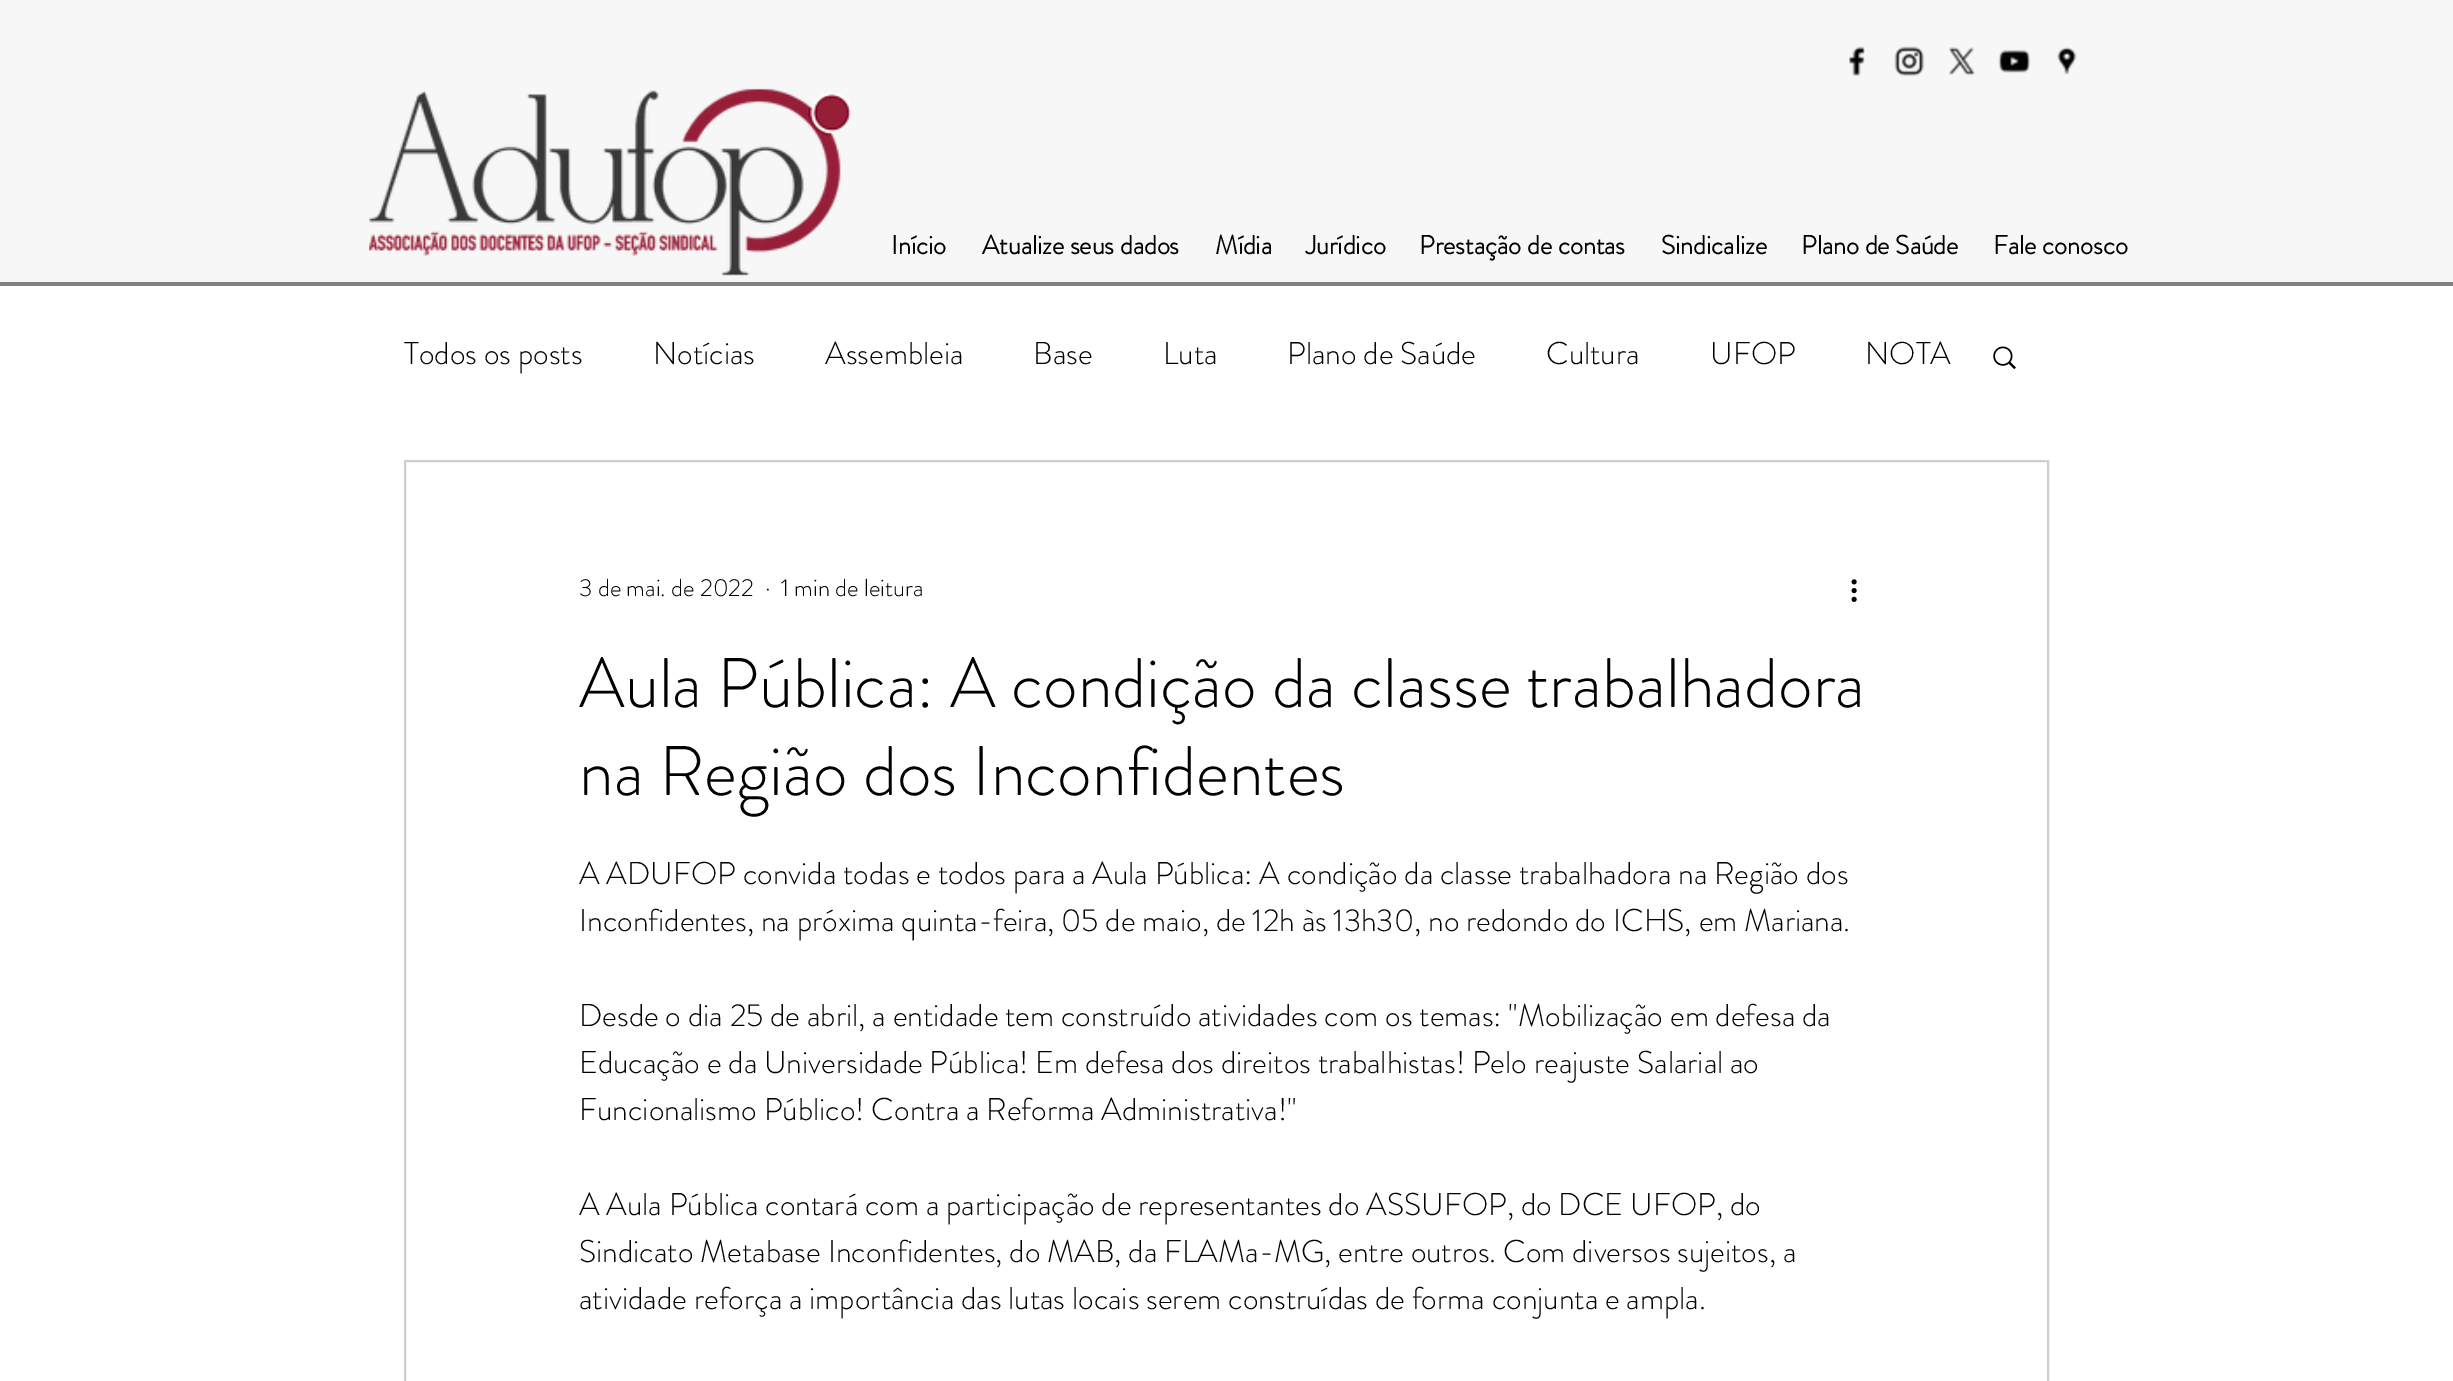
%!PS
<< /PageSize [2453 1381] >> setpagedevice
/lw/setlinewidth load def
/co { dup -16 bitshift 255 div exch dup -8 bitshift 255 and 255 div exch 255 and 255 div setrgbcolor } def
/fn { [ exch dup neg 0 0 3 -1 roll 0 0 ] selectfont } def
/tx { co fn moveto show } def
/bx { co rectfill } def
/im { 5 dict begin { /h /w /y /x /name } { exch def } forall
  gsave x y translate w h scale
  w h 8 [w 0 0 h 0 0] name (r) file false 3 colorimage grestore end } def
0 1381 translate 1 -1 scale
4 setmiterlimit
0 0 2453 1381 16#FFFFFF bx
0 0 2453 282 16#F7F7F7 bx
0 282 2453 4 16#808080 bx
(media/1.raw) 1849 46 16 30 im
(media/2.raw) 1894 46 31 30 im
(media/3.raw) 1949 47 26 29 im
(media/4.raw) 1998 49 33 24 im
(media/5.raw) 2057 47 20 28 im
(media/6.raw) 369 88 483 188 im
(media/7.raw) 1993 346 23 24 im
16#CFCFCF co
2 lw
405 461 1643 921 rectstroke
(media/8.raw) 1851 579 6 23 im
(Início) 891 254 /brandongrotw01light-Bold 26.25 16#000000 tx
(Atualize seus dados) 982 254 /brandongrotw01light-Bold 26.25 16#000000 tx
(Mídia) 1215 254 /brandongrotw01light-Bold 26.25 16#000000 tx
(Jurídico) 1306 254 /brandongrotw01light-Bold 26.25 16#000000 tx
(Prestação de contas) 1419 254 /brandongrotw01light-Bold 26.25 16#000000 tx
(Sindicalize) 1661 254 /brandongrotw01light-Bold 26.25 16#000000 tx
(Plano de Saúde) 1801 254 /brandongrotw01light-Bold 26.25 16#000000 tx
(Fale conosco) 1993 254 /brandongrotw01light-Bold 26.25 16#000000 tx
(Todos os posts) 404 364 /brandongrotw01light-Light 31.5 16#000000 tx
(Notícias) 653 364 /brandongrotw01light-Light 31.5 16#000000 tx
(Assembleia) 825 364 /brandongrotw01light-Light 31.5 16#000000 tx
(Base) 1033 364 /brandongrotw01light-Light 31.5 16#000000 tx
(Luta) 1163 364 /brandongrotw01light-Light 31.5 16#000000 tx
(Plano de Saúde) 1287 364 /brandongrotw01light-Light 31.5 16#000000 tx
(Cultura) 1546 364 /brandongrotw01light-Light 31.5 16#000000 tx
(UFOP) 1710 364 /brandongrotw01light-Light 31.5 16#000000 tx
(NOTA) 1865 364 /brandongrotw01light-Light 31.5 16#000000 tx
(3 de mai. de 2022) 579 596 /brandongrotw01light-Light 24.5 16#000000 tx
(·) 765 596 /brandongrotw01light-Light 24.5 16#000000 tx
(1 min de leitura) 781 596 /brandongrotw01light-Light 24.5 16#000000 tx
(Aula Pública: A condição da classe trabalhadora) 579 707 /brandongrotw01light-Light 70 16#000000 tx
(na Região dos Inconfidentes) 579 795 /brandongrotw01light-Light 70 16#000000 tx
(A ADUFOP convida todas e todos para a Aula Pública: A condição da classe trabalhadora na Região dos) 579 884 /brandongrotw01light-Light 31.5 16#000000 tx
(Inconfidentes, na próxima quinta-feira, 05 de maio, de 12h às 13h30, no redondo do ICHS, em Mariana.) 579 931 /brandongrotw01light-Light 31.5 16#000000 tx
(Desde o dia 25 de abril, a entidade tem construído atividades com os temas: "Mobilização em defesa da) 579 1026 /brandongrotw01light-Light 31.5 16#000000 tx
(Educação e da Universidade Pública! Em defesa dos direitos trabalhistas! Pelo reajuste Salarial ao) 579 1073 /brandongrotw01light-Light 31.5 16#000000 tx
(Funcionalismo Público! Contra a Reforma Administrativa!") 579 1120 /brandongrotw01light-Light 31.5 16#000000 tx
(A Aula Pública contará com a participação de representantes do ASSUFOP, do DCE UFOP, do) 579 1215 /brandongrotw01light-Light 31.5 16#000000 tx
(Sindicato Metabase Inconfidentes, do MAB, da FLAMa-MG, entre outros. Com diversos sujeitos, a) 579 1262 /brandongrotw01light-Light 31.5 16#000000 tx
(atividade reforça a importância das lutas locais serem construídas de forma conjunta e ampla.) 579 1309 /brandongrotw01light-Light 31.5 16#000000 tx
showpage
